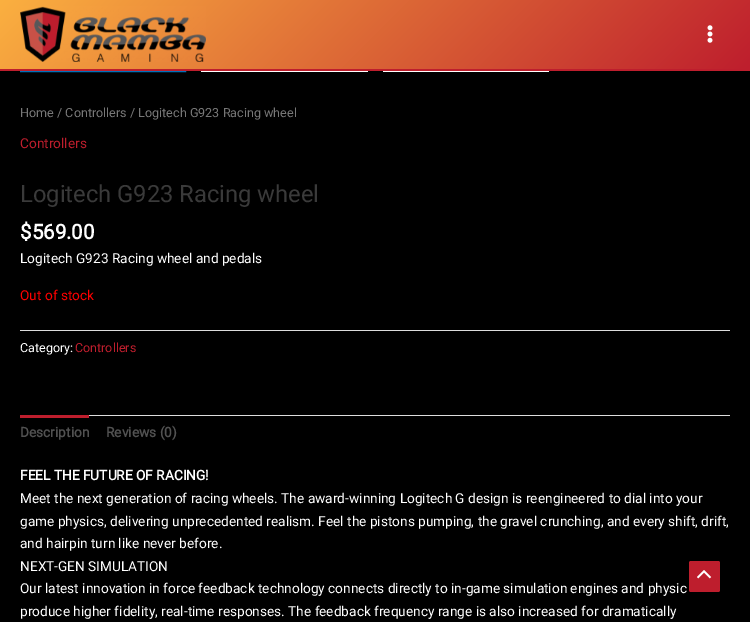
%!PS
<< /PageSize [750 622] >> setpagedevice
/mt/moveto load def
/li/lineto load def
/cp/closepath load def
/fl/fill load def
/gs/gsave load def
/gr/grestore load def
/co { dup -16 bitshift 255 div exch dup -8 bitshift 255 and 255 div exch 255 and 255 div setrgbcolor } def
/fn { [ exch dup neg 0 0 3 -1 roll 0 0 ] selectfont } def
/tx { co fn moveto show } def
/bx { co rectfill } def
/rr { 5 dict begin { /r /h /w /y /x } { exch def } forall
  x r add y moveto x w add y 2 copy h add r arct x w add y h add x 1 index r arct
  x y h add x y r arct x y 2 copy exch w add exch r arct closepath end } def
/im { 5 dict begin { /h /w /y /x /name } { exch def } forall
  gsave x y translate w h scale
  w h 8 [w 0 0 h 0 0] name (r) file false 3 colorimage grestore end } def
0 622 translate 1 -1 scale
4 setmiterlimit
0 0 750 622 16#000000 bx
16#0170B9 co
20.5 -.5 165 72 rectstroke
gs 0 0 mt 750 0 li 750 69 li 0 69 li cp clip newpath
<< /ShadingType 2 /ColorSpace /DeviceRGB /Coords [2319 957 681 -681] /Extend [true true] /Function << /FunctionType 3 /Domain [0 1] /Functions [<< /FunctionType 2 /Domain [0 1] /C0 [.933 .467 .322] /C1 [0 .4 1] /N 1 >> << /FunctionType 2 /Domain [0 1] /C0 [0 .4 1] /C1 [.906 .235 .494] /N 1 >> << /FunctionType 2 /Domain [0 1] /C0 [.906 .235 .494] /C1 [.745 .118 .176] /N 1 >> << /FunctionType 2 /Domain [0 1] /C0 [.745 .118 .176] /C1 [.984 .69 .251] /N 1 >>] /Bounds [.25 .5 .75] /Encode [0 1 0 1 0 1 0 1] >> >> shfill gr
0 69 750 2 16#BE1E2D bx
(media/1.raw) 20 6 186 56 im
(media/2.raw) 707 25 6 18 im
(media/3.raw) 201 71 167 1 im
(media/4.raw) 383 71 166 1 im
20 330 710 1 16#DDDDDD bx
89 415 641 1 16#DDDDDD bx
20 415 69 3 16#BE1E2D bx
689 561 31 31 2 rr fl
(media/5.raw) 697 570 15 9 im
(Home / Controllers / Logitech G923 Racing wheel) 20 117 /Roboto-Regular 12.6 16#777777 tx
(Controllers) 20 148 /Roboto-Regular 13.68 16#BE1E2D tx
(Logitech G923 Racing wheel) 20 202 /Roboto-Regular 23.75 16#3A3A3A tx
($569.00) 20 239 /Roboto-Bold 20.5 16#FFFFFF tx
(Logitech G923 Racing wheel and pedals) 20 263 /Roboto-Regular 13.68 16#FFFFFF tx
(Out of stock) 20 300 /Roboto-Regular 13.68 16#FF0000 tx
(Category:) 20 352 /Roboto-Regular 12.5 16#FFFFFF tx
(Controllers) 75 352 /Roboto-Regular 12.5 16#BE1E2D tx
(Description) 20 437 /Roboto-Bold 13.68 16#515151 tx
(Reviews \(0\)) 106 437 /Roboto-Bold 13.68 16#515151 tx
(FEEL THE FUTURE OF RACING!) 20 480 /Roboto-Bold 13.68 16#FFFFFF tx
(Meet the next generation of racing wheels. The award-winning Logitech G design is reengineered to dial into your) 20 503 /Roboto-Regular 13.68 16#FFFFFF tx
(game physics, delivering unprecedented realism. Feel the pistons pumping, the gravel crunching, and every shift, drift,) 20 526 /Roboto-Regular 13.68 16#FFFFFF tx
(and hairpin turn like never before.) 20 548 /Roboto-Regular 13.68 16#FFFFFF tx
(NEXT-GEN SIMULATION) 20 571 /Roboto-Regular 13.68 16#FFFFFF tx
(Our latest innovation in force feedback technology connects directly to in-game simulation engines and physic) 20 593 /Roboto-Regular 13.68 16#FFFFFF tx
(produce higher fidelity, real-time responses. The feedback frequency range is also increased for dramatically) 20 616 /Roboto-Regular 13.68 16#FFFFFF tx
showpage
